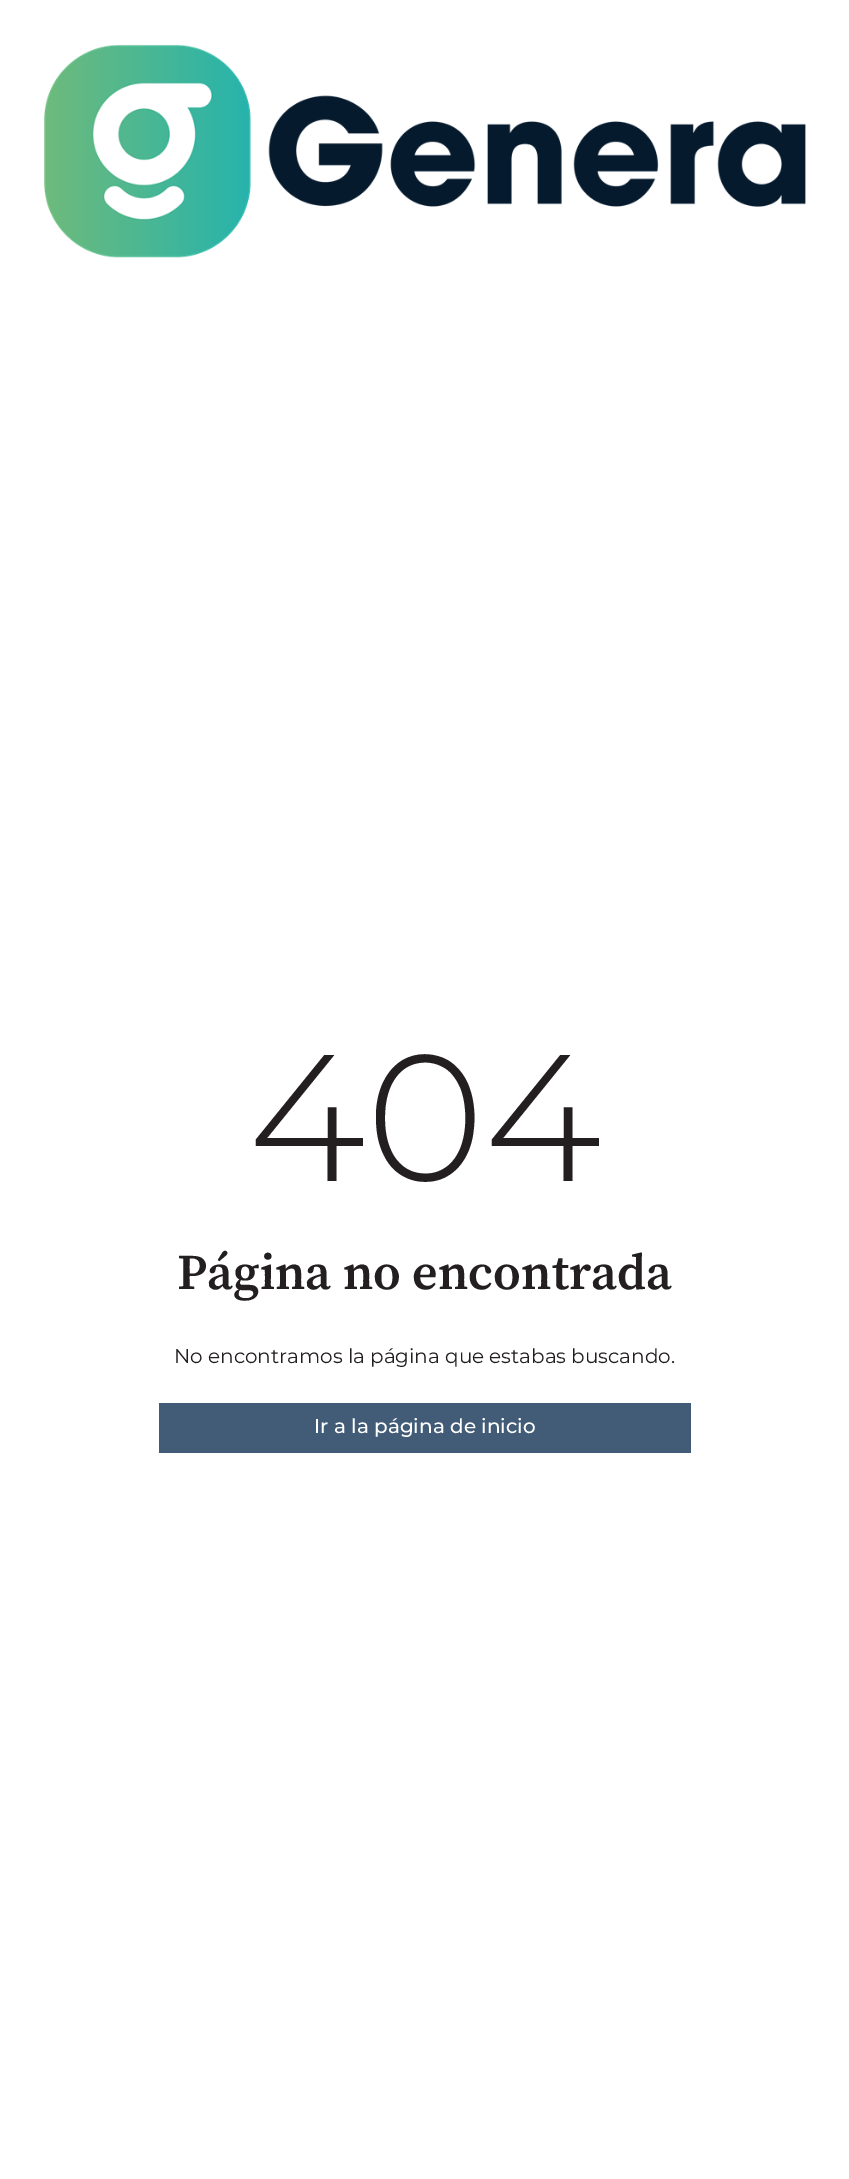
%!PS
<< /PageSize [849 2179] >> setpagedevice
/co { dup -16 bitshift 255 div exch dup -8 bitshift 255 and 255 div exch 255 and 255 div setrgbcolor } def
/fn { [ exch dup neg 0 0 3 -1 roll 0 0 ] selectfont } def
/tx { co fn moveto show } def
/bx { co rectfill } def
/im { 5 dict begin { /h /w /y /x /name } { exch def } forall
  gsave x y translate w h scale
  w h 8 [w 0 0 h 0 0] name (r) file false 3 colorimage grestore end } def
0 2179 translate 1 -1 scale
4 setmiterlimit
0 0 849 2179 16#FFFFFF bx
(media/1.raw) 44 44 762 214 im
159 1403 532 50 16#425B76 bx
(404) 248 1181 /Montserrat-Light 180 16#231F20 tx
(Página no encontrada) 177 1289 /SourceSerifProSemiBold-SemiBold 50 16#231F20 tx
(No encontramos la página que estabas buscando.) 174 1363 /Montserrat-Regular 20 16#231F20 tx
(Ir a la página de inicio) 314 1433 /Montserrat-Medium 20 16#FFFFFF tx
showpage
